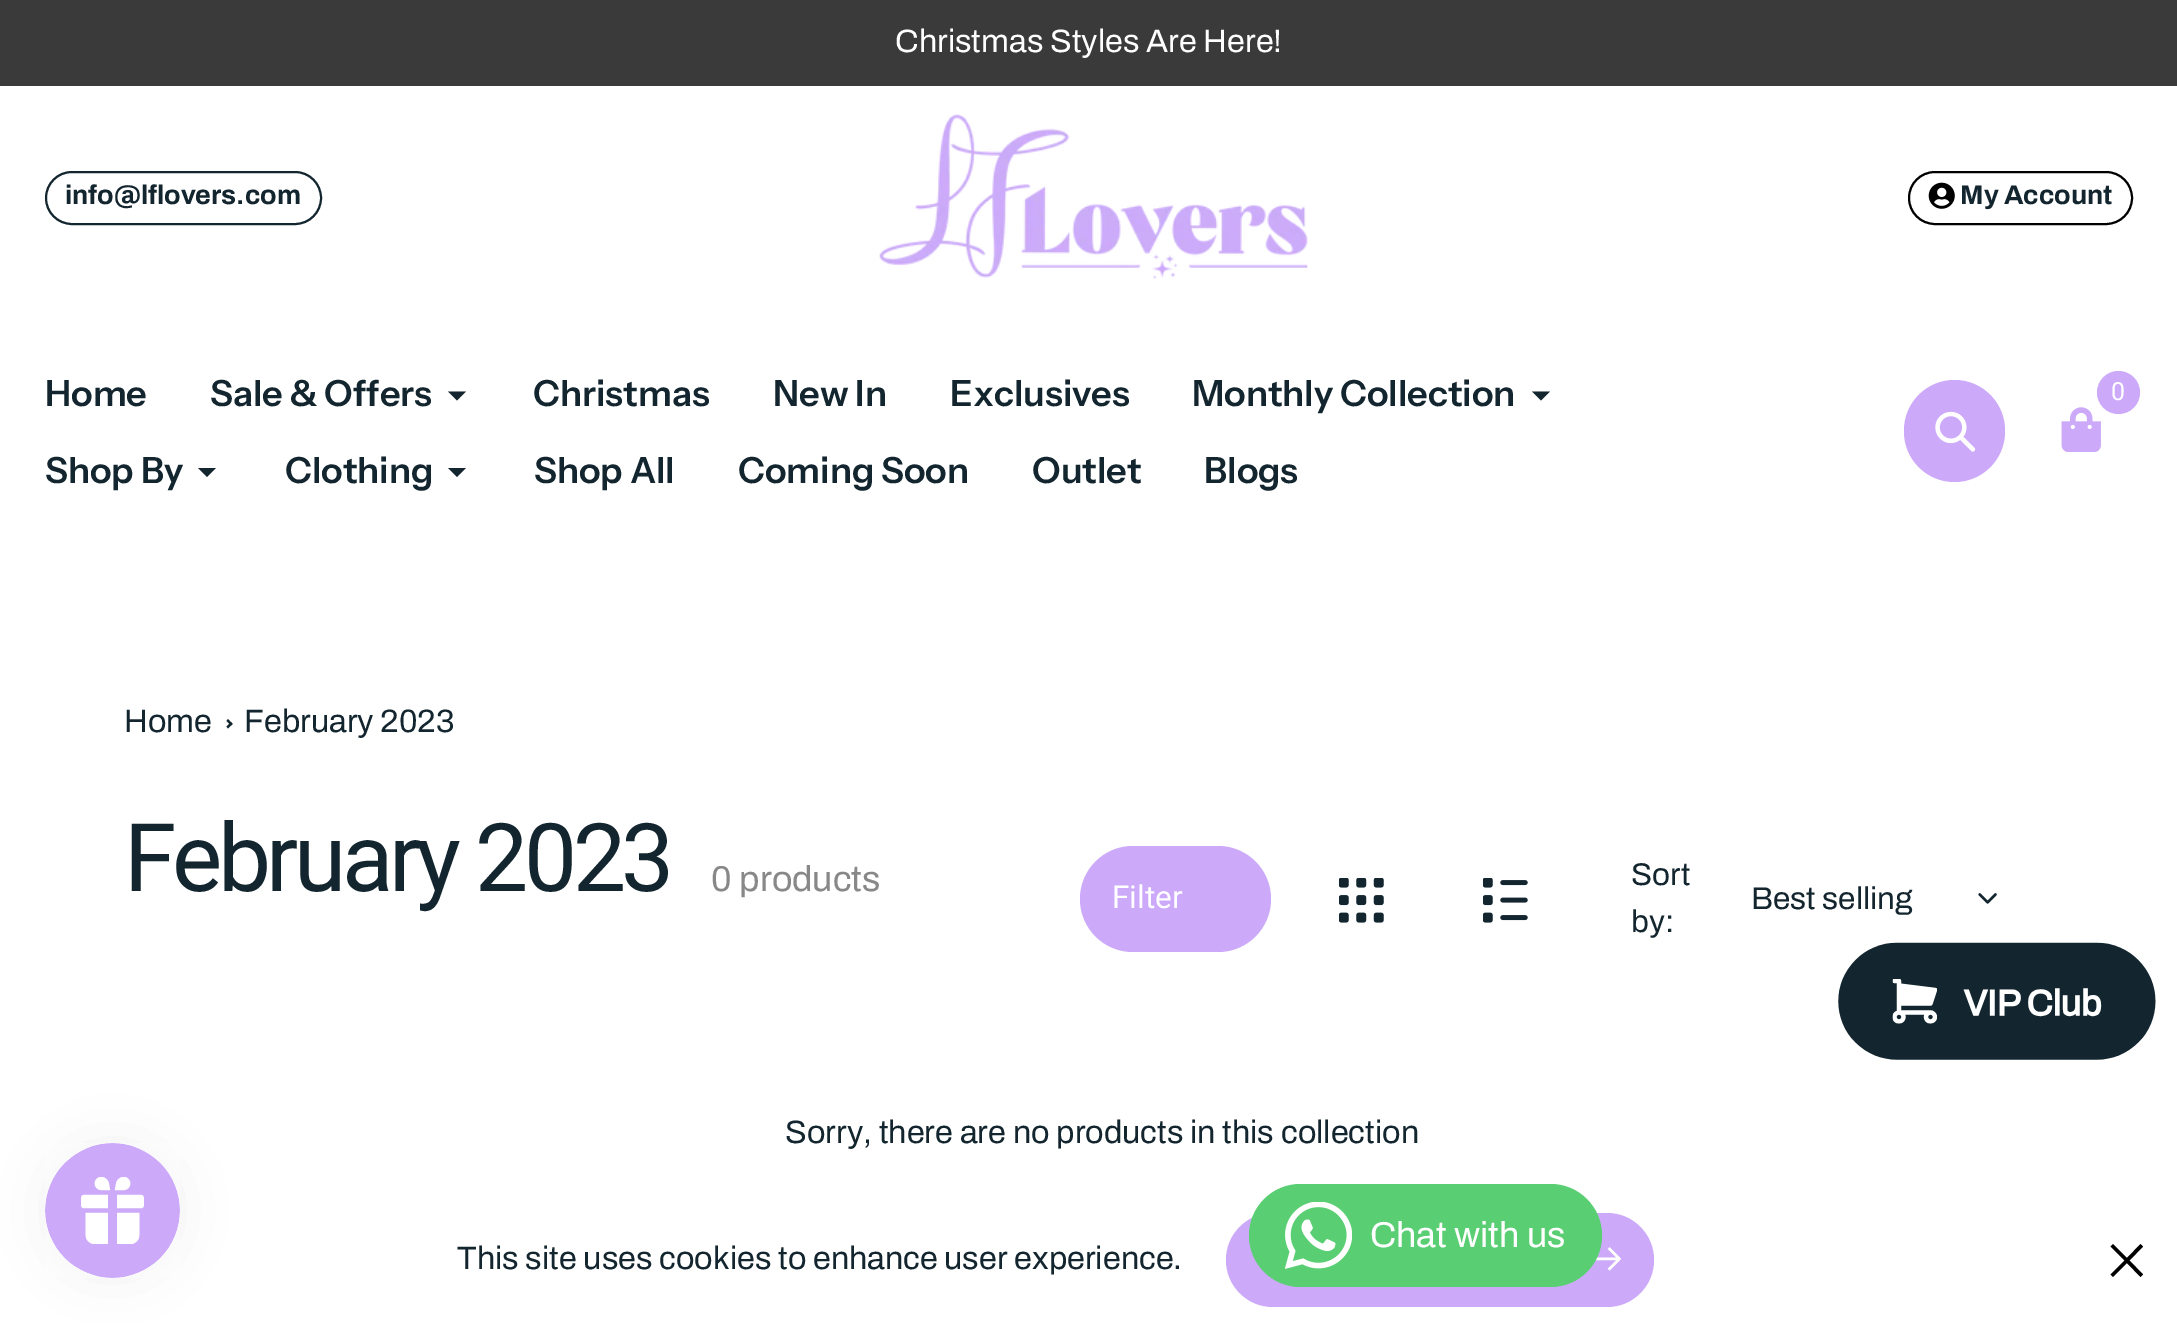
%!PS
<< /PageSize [2177 1323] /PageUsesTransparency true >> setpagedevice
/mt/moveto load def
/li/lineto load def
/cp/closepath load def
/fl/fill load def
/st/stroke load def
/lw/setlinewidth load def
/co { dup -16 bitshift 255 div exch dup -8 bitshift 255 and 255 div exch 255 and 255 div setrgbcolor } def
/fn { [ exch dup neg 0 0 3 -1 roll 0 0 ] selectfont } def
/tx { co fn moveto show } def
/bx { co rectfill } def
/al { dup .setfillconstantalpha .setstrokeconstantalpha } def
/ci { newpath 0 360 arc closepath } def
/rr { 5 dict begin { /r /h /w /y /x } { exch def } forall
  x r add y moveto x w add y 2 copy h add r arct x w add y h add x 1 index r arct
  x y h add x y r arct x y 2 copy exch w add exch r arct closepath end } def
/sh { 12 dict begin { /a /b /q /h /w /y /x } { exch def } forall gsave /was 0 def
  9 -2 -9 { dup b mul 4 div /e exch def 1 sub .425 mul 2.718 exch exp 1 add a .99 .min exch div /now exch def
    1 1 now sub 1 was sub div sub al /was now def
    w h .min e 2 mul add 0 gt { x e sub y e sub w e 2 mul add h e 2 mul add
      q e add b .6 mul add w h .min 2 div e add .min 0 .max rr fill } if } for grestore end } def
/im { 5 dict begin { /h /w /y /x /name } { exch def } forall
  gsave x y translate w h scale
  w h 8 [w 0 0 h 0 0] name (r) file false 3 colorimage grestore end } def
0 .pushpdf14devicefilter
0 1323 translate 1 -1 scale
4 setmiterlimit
0 0 2177 1323 16#FFFFFF bx
0 0 2177 86 16#3A3A3A bx
16#13262F co
2 lw
46 172 275 52 26 rr st
(media/1.raw) 879 114 429 165 im
16#000000 co
1909 172 223 52 26 rr st
(media/2.raw) 1928 182 27 27 im
16#13262F co
466 391.5 mt 457 400.5 li 448 391.5 li fl
1550 391.5 mt 1541 400.5 li 1532 391.5 li fl
216 468 mt 207 477 li 198 468 li fl
466 468 mt 457 477 li 448 468 li fl
16#CCAAF9 co
1904 380 101 102 50.5 rr fl
(media/3.raw) 1935 411 41 41 im
(media/4.raw) 2061 407 40 45 im
2118.5 392.5 21.5 ci fl
16#13262F co
228 719 mt 232.5 724 li 231 725.5 li 226.5 721 li cp fl
231 722 mt 232.5 724 li 228 728.5 li 226.5 726.5 li cp fl
16#CCAAF9 co
1080 846 191 106 53 rr fl
(media/5.raw) 1339 878 45 45 im
(media/6.raw) 1483 878 45 45 im
(media/7.raw) 1978 893 19 11 im
(media/8.raw) 1838 942 318 118 im
16#000000 co
45 1143 135 135 67.5 28 .05 sh
(media/9.raw) 45 1143 135 135 im
16#CCAAF9 co
1226 1213 428 94 47 rr fl
(media/11.raw) 1595 1247 26 24 im
16#59CE72 co
1249 1184 353 103 51.5 rr fl
(media/10.raw) 1285 1202 67 67 im
16#000000 co
2127 1258 mt 2140.5 1244 li 2143 1246.5 li 2129.5 1260.5 li 2143 1274.5 li 2140.5 1277 li 2127 1263 li 2113 1277 li 2110.5 1274.5 li 2124.5 1260.5 li 2110.5 1246.5 li 2113 1244 li cp eofill
(Christmas Styles Are Here!) 895 52 /Archivo-Regular 32.4 16#FFFFFF tx
(info@lflovers.com) 65 204 /Archivo-Bold 27 16#13262F tx
(My Account) 1960 204 /Archivo-Bold 27 16#13262F tx
(Home) 45 406 /InstrumentSans-SemiBold 36 16#13262F tx
(Sale & Offers) 210 406 /InstrumentSans-SemiBold 36 16#13262F tx
(Christmas) 533 406 /InstrumentSans-SemiBold 36 16#13262F tx
(New In) 773 406 /InstrumentSans-SemiBold 36 16#13262F tx
(Exclusives) 950 406 /InstrumentSans-SemiBold 36 16#13262F tx
(Monthly Collection) 1192 406 /InstrumentSans-SemiBold 36 16#13262F tx
(Shop By) 45 483 /InstrumentSans-SemiBold 36 16#13262F tx
(Clothing) 285 483 /InstrumentSans-SemiBold 36 16#13262F tx
(Shop All) 534 483 /InstrumentSans-SemiBold 36 16#13262F tx
(Coming Soon) 738 483 /InstrumentSans-SemiBold 36 16#13262F tx
(Outlet) 1032 483 /InstrumentSans-SemiBold 36 16#13262F tx
(Blogs) 1204 483 /InstrumentSans-SemiBold 36 16#13262F tx
(0) 2111 400 /Roboto-Regular 25 16#FFFFFF tx
(Home) 124 732 /Archivo-Regular 32.4 16#13262F tx
(February 2023) 244 732 /Archivo-Regular 32.4 16#13262F tx
/Roboto-Regular 94.75 fn
124 891 mt -4.5 0 (February 2023) ashow
(0 products) 711 891 /Archivo-Regular 36 16#888888 tx
(Filter) 1112 908 /Roboto-Regular 31.5 16#FFFFFF tx
(Sort) 1631 885 /Archivo-Regular 31.5 16#13262F tx
(by:) 1631 932 /Archivo-Regular 31.5 16#13262F tx
(Best selling) 1751 909 /Archivo-Regular 31.5 16#13262F tx
(Sorry, there are no products in this collection) 785 1143 /Archivo-Regular 32.4 16#13262F tx
(Chat with us) 1370 1247 /Archivo-Regular 36 16#FFFFFF tx
(This site uses cookies to enhance user experience.) 457 1269 /Archivo-Regular 32.4 16#13262F tx
.poppdf14devicefilter showpage
